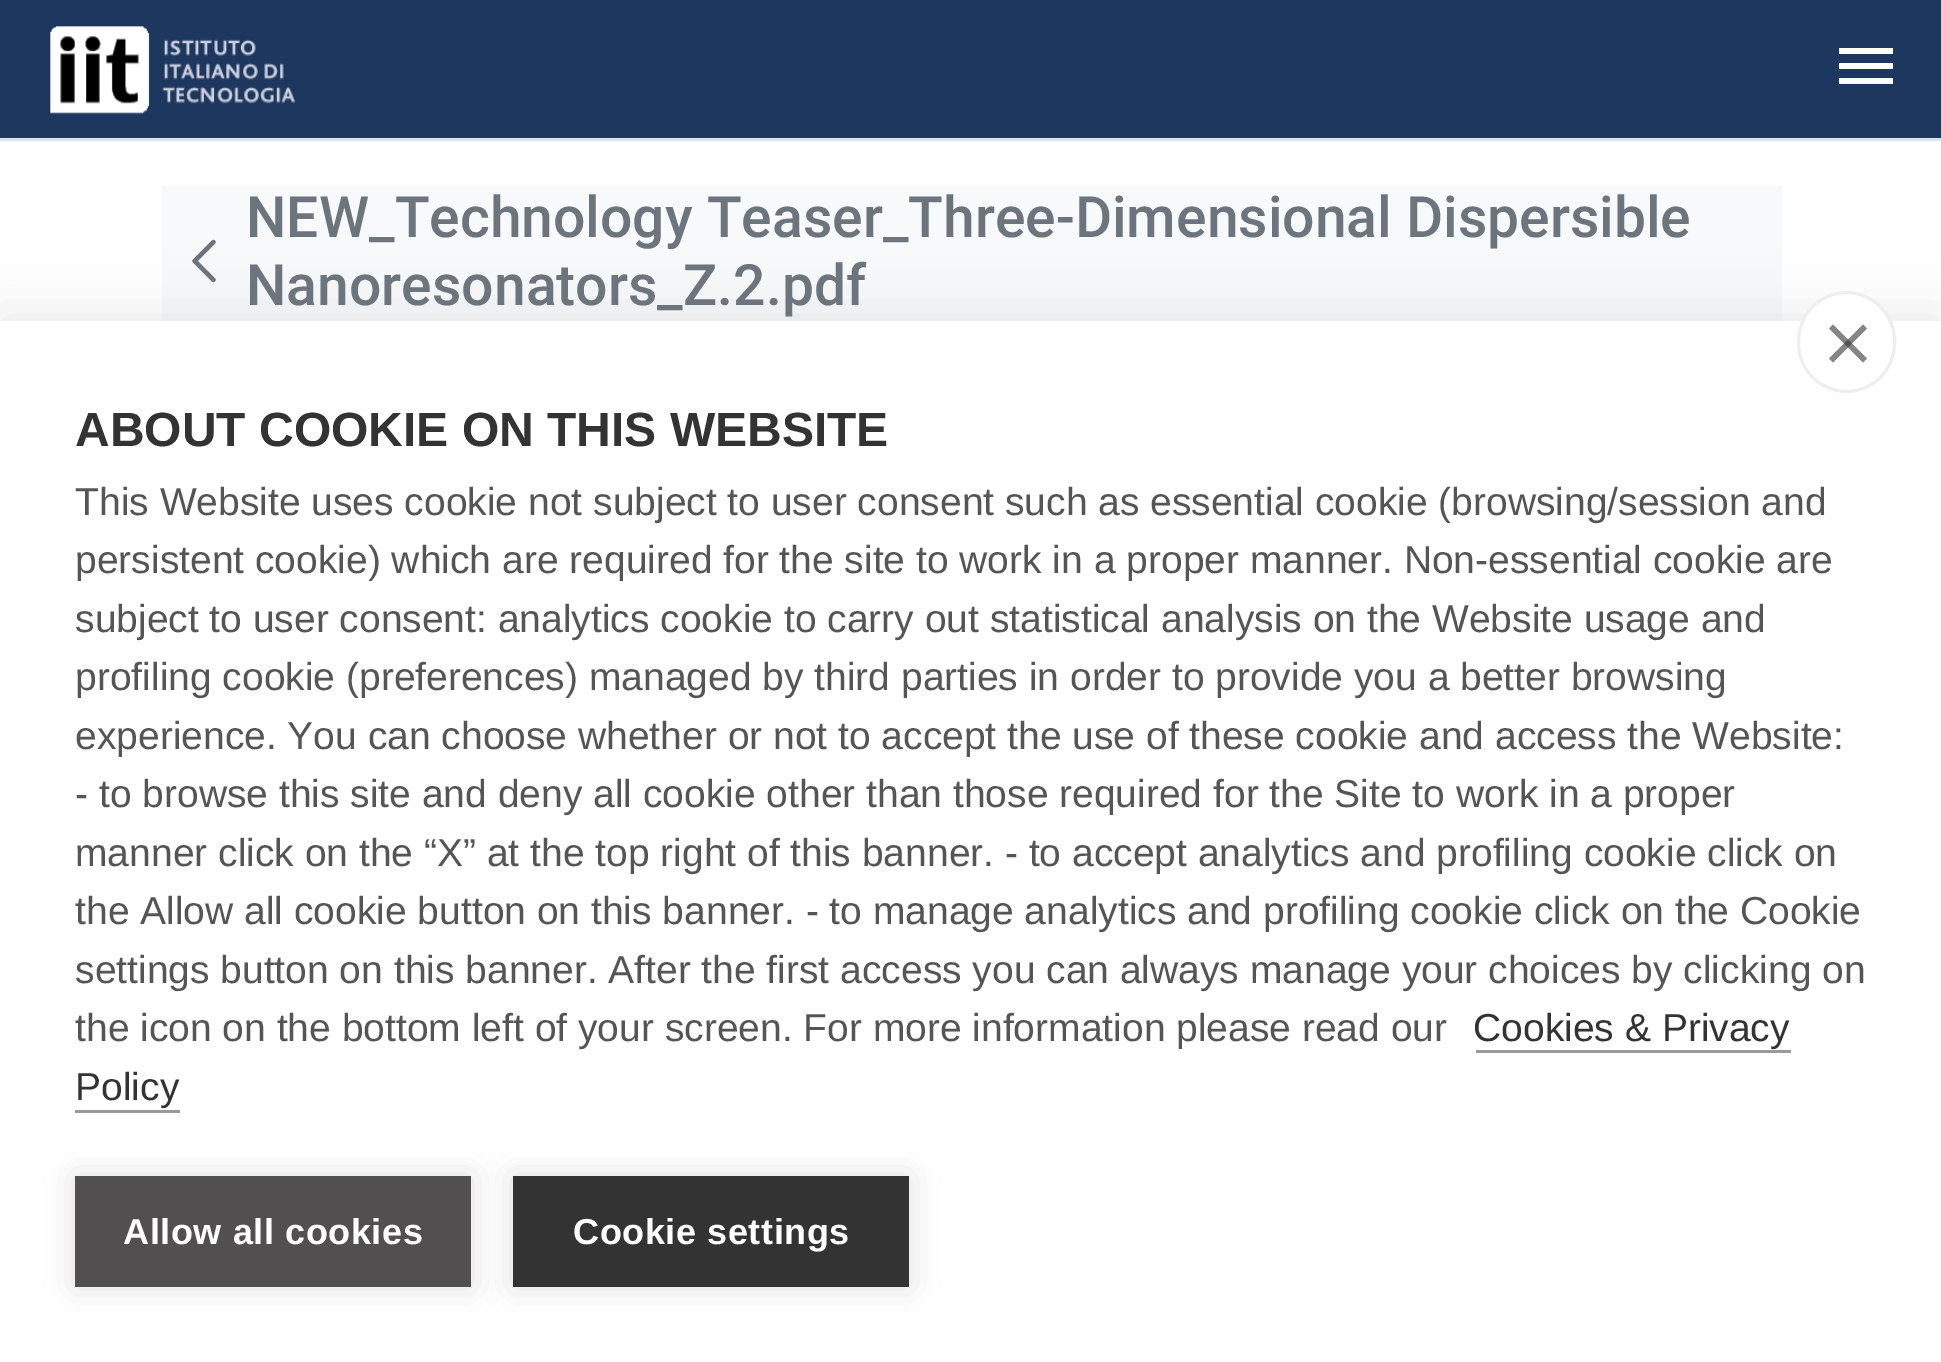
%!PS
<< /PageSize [1941 1362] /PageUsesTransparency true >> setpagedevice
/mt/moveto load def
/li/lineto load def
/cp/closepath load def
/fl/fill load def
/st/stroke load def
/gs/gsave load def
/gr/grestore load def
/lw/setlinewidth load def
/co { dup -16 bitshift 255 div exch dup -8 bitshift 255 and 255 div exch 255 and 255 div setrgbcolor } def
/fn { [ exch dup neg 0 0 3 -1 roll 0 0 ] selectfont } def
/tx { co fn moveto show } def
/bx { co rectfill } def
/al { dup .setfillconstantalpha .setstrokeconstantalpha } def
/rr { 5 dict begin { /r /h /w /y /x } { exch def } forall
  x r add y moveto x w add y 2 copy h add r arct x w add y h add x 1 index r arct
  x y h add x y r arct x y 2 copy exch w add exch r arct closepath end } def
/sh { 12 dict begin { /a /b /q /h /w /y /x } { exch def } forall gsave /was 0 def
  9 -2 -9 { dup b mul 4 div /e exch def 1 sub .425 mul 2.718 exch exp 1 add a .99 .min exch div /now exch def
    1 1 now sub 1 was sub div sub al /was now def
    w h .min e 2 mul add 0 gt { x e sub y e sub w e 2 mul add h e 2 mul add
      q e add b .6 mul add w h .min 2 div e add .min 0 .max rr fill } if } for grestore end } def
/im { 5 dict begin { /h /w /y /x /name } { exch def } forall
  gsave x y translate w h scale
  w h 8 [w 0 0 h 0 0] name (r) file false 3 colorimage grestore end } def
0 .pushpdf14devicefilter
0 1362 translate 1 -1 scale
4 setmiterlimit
0 0 1941 1362 16#FFFFFF bx
0 0 1941 138 16#1D375F bx
0 138 1941 3 16#DEE2EF bx
(media/1.raw) 50 26 246 88 im
16#FFFFFF co
1839 48 mt 1893 48 li 1893 54 li 1839 54 li cp 1839 69 mt 1839 63 li 1893 63 li 1893 69 li cp 1839 84 mt 1839 78 li 1893 78 li 1893 84 li cp fl
162 186 1620 135 16#F8F9FA bx
(media/2.raw) 192 239 24 44 im
16#000000 co
0 321 1941 1041 0 30 .1 sh
0 321 1941 1041 16#FFFFFF bx
1798.5 292.5 96 99 48 rr gs fl gr
16#EEEEEE co
3 lw
st
16#858585 co
1829 358.5 mt 1863 324.5 li 1867 328.5 li 1833 362.5 li cp fl
0.6 al
16#333333 co
1833 324.5 mt 1867 358.5 li 1863 362.5 li 1829 328.5 li cp fl
1 al
1476 1050 315 3 16#999999 bx
75 1110 105 3 16#999999 bx
16#000000 co
75 1176 396 111 0 15 .12 sh
75 1176 396 111 16#524F50 bx
16#000000 co
513 1176 396 111 0 15 .12 sh
513 1176 396 111 16#333333 bx
(NEW_Technology Teaser_Three-Dimensional Dispersible) 246 237 /Roboto-Medium 57 16#6C757D tx
(Nanoresonators_Z.2.pdf) 246 305 /Roboto-Medium 57 16#6C757D tx
(ABOUT COOKIE ON THIS WEBSITE) 75 446 /LiberationSans-Bold 48 16#333333 tx
(This Website uses cookie not subject to user consent such as essential cookie \(browsing/session and) 75 515 /LiberationSans-Regular 39 16#555555 tx
(persistent cookie\) which are required for the site to work in a proper manner. Non-essential cookie are) 75 573 /LiberationSans-Regular 39 16#555555 tx
(subject to user consent: analytics cookie to carry out statistical analysis on the Website usage and) 75 632 /LiberationSans-Regular 39 16#555555 tx
(profiling cookie \(preferences\) managed by third parties in order to provide you a better browsing) 75 690 /LiberationSans-Regular 39 16#555555 tx
(experience. You can choose whether or not to accept the use of these cookie and access the Website:) 75 749 /LiberationSans-Regular 39 16#555555 tx
(- to browse this site and deny all cookie other than those required for the Site to work in a proper) 75 807 /LiberationSans-Regular 39 16#555555 tx
(manner click on the “X” at the top right of this banner. - to accept analytics and profiling cookie click on) 75 866 /LiberationSans-Regular 39 16#555555 tx
(the Allow all cookie button on this banner. - to manage analytics and profiling cookie click on the Cookie) 75 924 /LiberationSans-Regular 39 16#555555 tx
(settings button on this banner. After the first access you can always manage your choices by clicking on) 75 983 /LiberationSans-Regular 39 16#555555 tx
(the icon on the bottom left of your screen. For more information please read our) 75 1041 /LiberationSans-Regular 39 16#555555 tx
(Cookies & Privacy) 1473 1041 /LiberationSans-Regular 39 16#333333 tx
(Policy) 75 1100 /LiberationSans-Regular 39 16#333333 tx
/LiberationSans-Bold 36 fn
16#FFFFFF co
123 1244 mt .6 0 (Allow all cookies) ashow
573 1244 mt .6 0 (Cookie settings) ashow
.poppdf14devicefilter showpage
